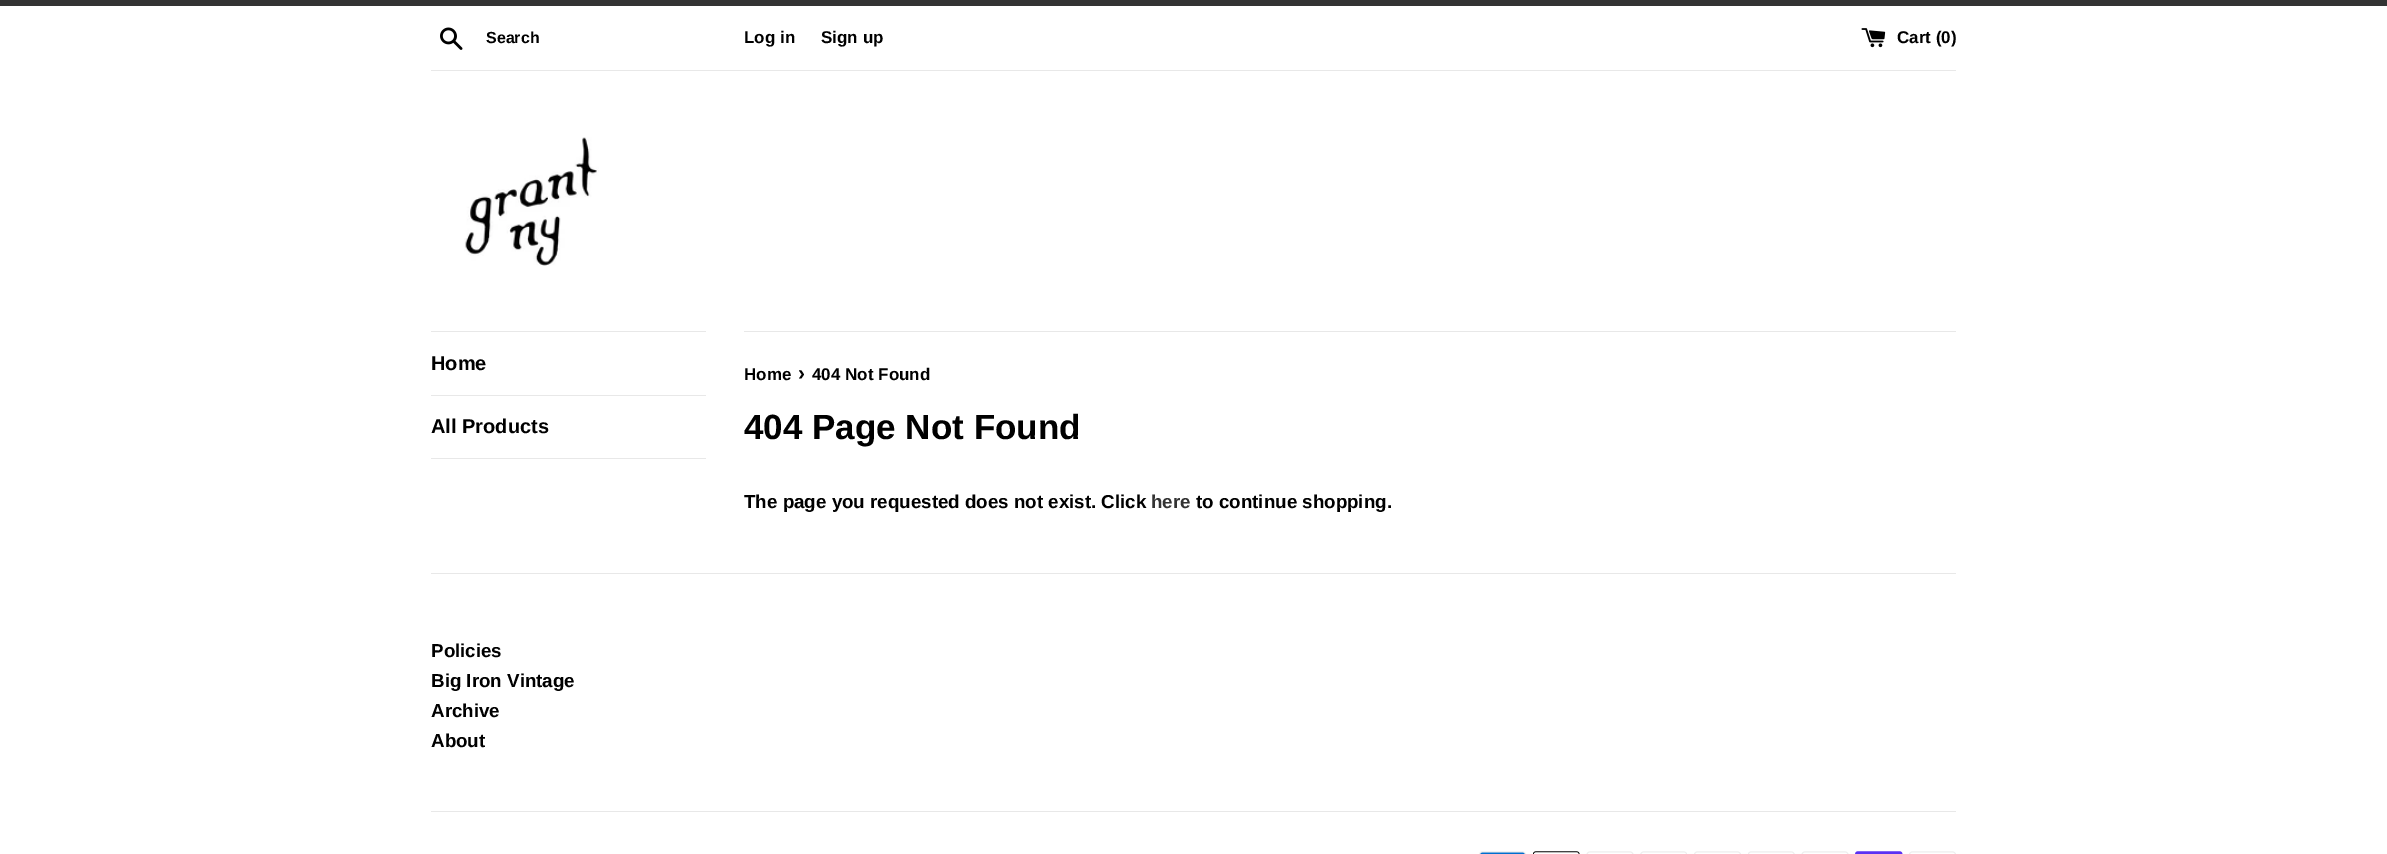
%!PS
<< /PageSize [2387 854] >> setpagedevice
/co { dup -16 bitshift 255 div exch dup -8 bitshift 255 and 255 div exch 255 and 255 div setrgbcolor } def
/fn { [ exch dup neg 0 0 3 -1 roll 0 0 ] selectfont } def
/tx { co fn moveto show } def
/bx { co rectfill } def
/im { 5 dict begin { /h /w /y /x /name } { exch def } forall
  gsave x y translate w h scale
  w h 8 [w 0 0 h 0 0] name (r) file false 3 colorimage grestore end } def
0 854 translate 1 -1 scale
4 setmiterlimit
0 0 2387 854 16#FFFFFF bx
0 0 2387 6 16#333333 bx
(media/1.raw) 440 27 23 23 im
(media/2.raw) 1861 28 25 20 im
431 70 1525 1 16#E8E8E8 bx
(media/3.raw) 464 137 135 129 im
431 331 275 1 16#E8E8E8 bx
431 395 275 1 16#E8E8E8 bx
431 458 275 1 16#E8E8E8 bx
744 331 1212 1 16#E8E8E8 bx
431 573 1525 1 16#E8E8E8 bx
431 811 1525 1 16#E8E8E8 bx
(media/4.raw) 1479 851 47 3 im
(media/5.raw) 1533 851 47 3 im
(media/6.raw) 1586 851 48 3 im
(media/7.raw) 1640 851 47 3 im
(media/8.raw) 1694 851 47 3 im
(media/9.raw) 1748 851 47 3 im
(media/6.raw) 1801 851 48 3 im
(media/10.raw) 1855 851 48 3 im
(media/8.raw) 1909 851 47 3 im
(Search) 486 43 /LiberationSans-Bold 16 16#000000 tx
(Log in) 744 43 /LiberationSans-Bold 17 16#000000 tx
(Sign up) 821 43 /LiberationSans-Bold 17 16#000000 tx
(Cart \(0\)) 1897 43 /LiberationSans-Bold 17 16#000000 tx
(Home) 431 370 /LiberationSans-Bold 20 16#000000 tx
(All Products) 431 433 /LiberationSans-Bold 20 16#000000 tx
(Home) 744 380 /LiberationSans-Bold 17 16#000000 tx
(›) 798 380 /LiberationSans-Bold 21 16#000000 tx
(404 Not Found) 812 380 /LiberationSans-Bold 17 16#000000 tx
(404 Page Not Found) 744 439 /LiberationSans-Bold 35 16#000000 tx
(The page you requested does not exist. Click) 744 508 /LiberationSans-Bold 18.75 16#000000 tx
(here) 1151 508 /LiberationSans-Bold 18.75 16#333333 tx
(to continue shopping.) 1196 508 /LiberationSans-Bold 18.75 16#000000 tx
(Policies) 431 657 /LiberationSans-Bold 18.75 16#000000 tx
(Big Iron Vintage) 431 687 /LiberationSans-Bold 18.75 16#000000 tx
(Archive) 431 717 /LiberationSans-Bold 18.75 16#000000 tx
(About) 431 747 /LiberationSans-Bold 18.75 16#000000 tx
showpage
